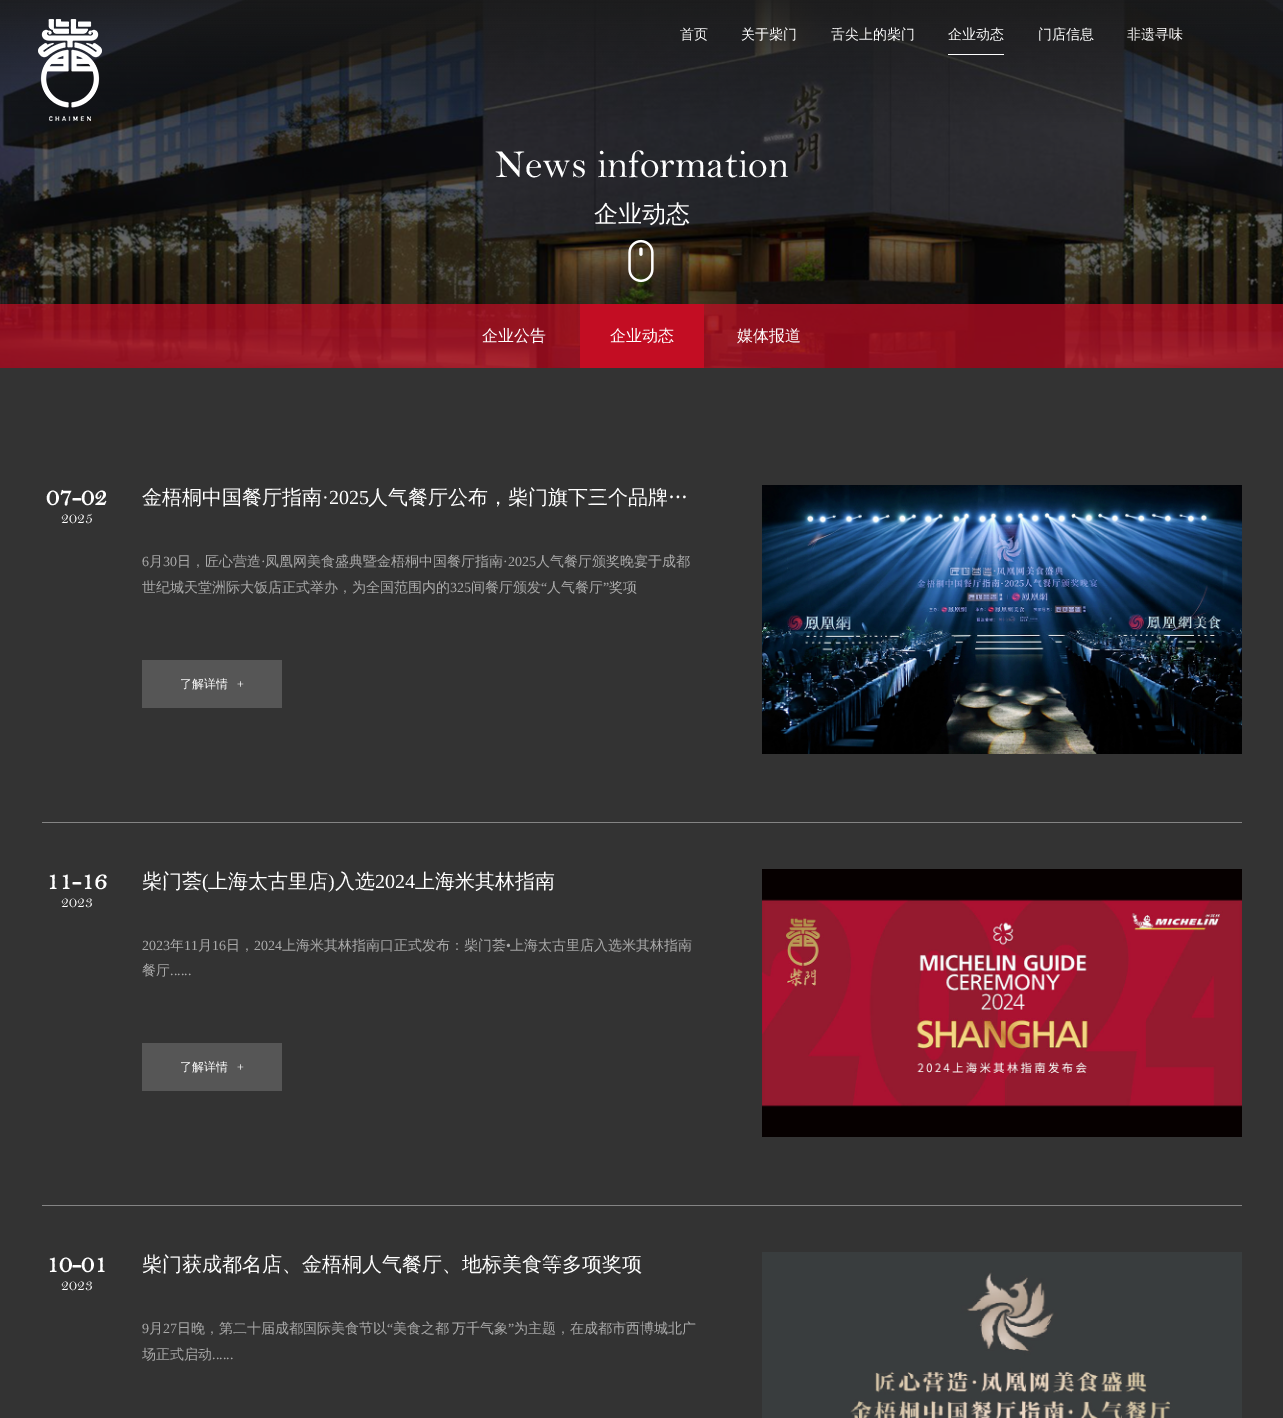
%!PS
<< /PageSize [1283 1418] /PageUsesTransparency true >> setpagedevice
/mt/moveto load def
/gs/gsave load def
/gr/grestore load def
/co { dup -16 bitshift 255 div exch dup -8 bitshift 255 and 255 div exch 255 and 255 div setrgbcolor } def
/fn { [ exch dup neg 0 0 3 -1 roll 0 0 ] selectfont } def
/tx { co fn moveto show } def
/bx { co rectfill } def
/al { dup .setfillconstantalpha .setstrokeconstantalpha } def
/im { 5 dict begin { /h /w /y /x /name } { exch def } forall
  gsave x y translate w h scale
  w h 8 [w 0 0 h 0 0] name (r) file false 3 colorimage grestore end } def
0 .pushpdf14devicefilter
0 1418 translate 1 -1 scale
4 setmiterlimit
0 0 1283 1418 16#333333 bx
(media/3.raw) 0 0 1283 368 im
(media/1.raw) 0 0 1283 122 im
(media/2.raw) 38 19 64 102 im
948 54 56 1 16#FFFFFF bx
(media/4.raw) 628 239 26 44 im
0.7 al
0 304 1283 64 16#C30D24 bx
1 al
580 304 124 64 16#C30D23 bx
142 660 140 48 16#565656 bx
(media/5.raw) 762 485 480 269 im
42 822 1200 1 16#848484 bx
142 1043 140 48 16#565656 bx
(media/6.raw) 762 869 480 268 im
42 1205 1200 1 16#848484 bx
(media/7.raw) 762 1252 480 166 im
(首页) 680 39 /WenQuanYiZenHei-Medium 14 16#FFFFFF tx
(关于柴门) 741 39 /WenQuanYiZenHei-Medium 14 16#FFFFFF tx
(舌尖上的柴门) 831 39 /WenQuanYiZenHei-Medium 14 16#FFFFFF tx
(企业动态) 948 39 /WenQuanYiZenHei-Medium 14 16#FFFFFF tx
(门店信息) 1038 39 /WenQuanYiZenHei-Medium 14 16#FFFFFF tx
(非遗寻味) 1127 39 /WenQuanYiZenHei-Medium 14 16#FFFFFF tx
(News information) 495 177 /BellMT-Regular 40 16#FFFFFF tx
(企业动态) 594 222 /WenQuanYiZenHei-Medium 24 16#FFFFFF tx
(企业公告) 482 341 /WenQuanYiZenHei-Medium 16 16#FFFFFF tx
(企业动态) 610 341 /WenQuanYiZenHei-Medium 16 16#FFFFFF tx
(媒体报道) 737 341 /WenQuanYiZenHei-Medium 16 16#FFFFFF tx
(07-02) 46 505 /BellMT-Bold 26 16#FFFFFF tx
(2025) 61 523 /BellMT-Regular 16 16#FFFFFF tx
(金梧桐中国餐厅指南) 142 504 /WenQuanYiZenHei-Medium 20 16#FFFFFF tx
(·2025) 322 504 /LiberationSerif-Regular 20 16#FFFFFF tx
(人气餐厅公布，柴门旗下三个品牌…) 368 504 /WenQuanYiZenHei-Medium 20 16#FFFFFF tx
(6) 142 566 /LiberationSerif-Regular 14 16#AAAAAA tx
(月) 149 566 /WenQuanYiZenHei-Medium 14 16#AAAAAA tx
(30) 163 566 /LiberationSerif-Regular 14 16#AAAAAA tx
(日，匠心营造) 177 566 /WenQuanYiZenHei-Medium 14 16#AAAAAA tx
(·) 261 566 /LiberationSerif-Regular 14 16#AAAAAA tx
(凤凰网美食盛典暨金梧桐中国餐厅指南) 265 566 /WenQuanYiZenHei-Medium 14 16#AAAAAA tx
(·2025) 503 566 /LiberationSerif-Regular 14 16#AAAAAA tx
(人气餐厅颁奖晚宴于成都) 536 566 /WenQuanYiZenHei-Medium 14 16#AAAAAA tx
(世纪城天堂洲际大饭店正式举办，为全国范围内的) 142 592 /WenQuanYiZenHei-Medium 14 16#AAAAAA tx
(325) 450 592 /LiberationSerif-Regular 14 16#AAAAAA tx
(间餐厅颁发) 471 592 /WenQuanYiZenHei-Medium 14 16#AAAAAA tx
(“) 541 592 /LiberationSerif-Regular 14 16#AAAAAA tx
(人气餐厅) 547 592 /WenQuanYiZenHei-Medium 14 16#AAAAAA tx
(”) 603 592 /LiberationSerif-Regular 14 16#AAAAAA tx
(奖项) 609 592 /WenQuanYiZenHei-Medium 14 16#AAAAAA tx
(了解详情) 180 688 /WenQuanYiZenHei-Medium 12 16#FFFFFF tx
(+) 237 688 /LiberationSerif-Regular 12 16#FFFFFF tx
(11-16) 46 889 /BellMT-Bold 26 16#FFFFFF tx
(2023) 61 907 /BellMT-Regular 16 16#FFFFFF tx
(柴门荟) 142 888 /WenQuanYiZenHei-Medium 20 16#FFFFFF tx
(\() 202 888 /LiberationSerif-Regular 20 16#FFFFFF tx
(上海太古里店) 208 888 /WenQuanYiZenHei-Medium 20 16#FFFFFF tx
(\)) 328 888 /LiberationSerif-Regular 20 16#FFFFFF tx
(入选) 335 888 /WenQuanYiZenHei-Medium 20 16#FFFFFF tx
(2024) 375 888 /LiberationSerif-Regular 20 16#FFFFFF tx
(上海米其林指南) 415 888 /WenQuanYiZenHei-Medium 20 16#FFFFFF tx
(2023) 142 950 /LiberationSerif-Regular 14 16#AAAAAA tx
(年) 170 950 /WenQuanYiZenHei-Medium 14 16#AAAAAA tx
(11) 184 950 /LiberationSerif-Regular 14 16#AAAAAA tx
(月) 198 950 /WenQuanYiZenHei-Medium 14 16#AAAAAA tx
(16) 212 950 /LiberationSerif-Regular 14 16#AAAAAA tx
(日，) 226 950 /WenQuanYiZenHei-Medium 14 16#AAAAAA tx
(2024) 254 950 /LiberationSerif-Regular 14 16#AAAAAA tx
(上海米其林指南口正式发布：柴门荟) 282 950 /WenQuanYiZenHei-Medium 14 16#AAAAAA tx
(•) 506 950 /LiberationSerif-Regular 14 16#AAAAAA tx
(上海太古里店入选米其林指南) 510 950 /WenQuanYiZenHei-Medium 14 16#AAAAAA tx
(餐厅) 142 975 /WenQuanYiZenHei-Medium 14 16#AAAAAA tx
(......) 170 975 /LiberationSerif-Regular 14 16#AAAAAA tx
(了解详情) 180 1071 /WenQuanYiZenHei-Medium 12 16#FFFFFF tx
(+) 237 1071 /LiberationSerif-Regular 12 16#FFFFFF tx
(10-01) 46 1272 /BellMT-Bold 26 16#FFFFFF tx
(2023) 61 1290 /BellMT-Regular 16 16#FFFFFF tx
(柴门获成都名店、金梧桐人气餐厅、地标美食等多项奖项) 142 1271 /WenQuanYiZenHei-Medium 20 16#FFFFFF tx
(9) 142 1333 /LiberationSerif-Regular 14 16#AAAAAA tx
(月) 149 1333 /WenQuanYiZenHei-Medium 14 16#AAAAAA tx
(27) 163 1333 /LiberationSerif-Regular 14 16#AAAAAA tx
(日晚，第二十届成都国际美食节以) 177 1333 /WenQuanYiZenHei-Medium 14 16#AAAAAA tx
(“) 387 1333 /LiberationSerif-Regular 14 16#AAAAAA tx
/WenQuanYiZenHei-Medium 14 fn
393 1333 mt -1 0 32 (美食之都 万千气象) widthshow
(”) 508 1333 /LiberationSerif-Regular 14 16#AAAAAA tx
(为主题，在成都市西博城北广) 514 1333 /WenQuanYiZenHei-Medium 14 16#AAAAAA tx
gs
142 1316 560 51 rectclip
(场正式启动) 142 1359 /WenQuanYiZenHei-Medium 14 16#AAAAAA tx
gr
(......) 212 1359 /LiberationSerif-Regular 14 16#AAAAAA tx
.poppdf14devicefilter showpage
